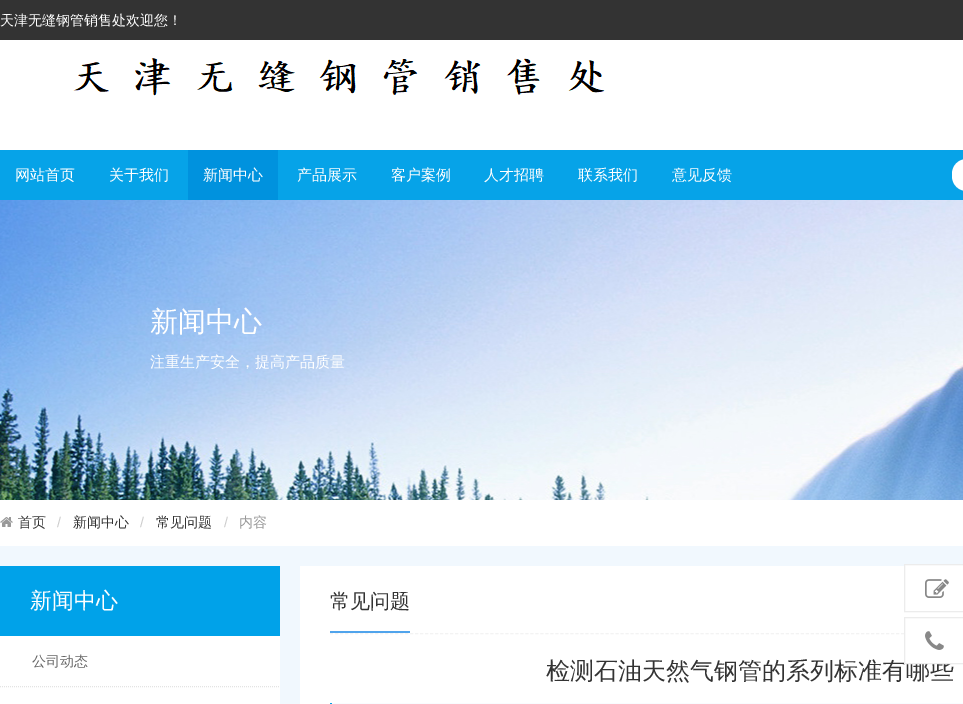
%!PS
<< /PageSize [963 704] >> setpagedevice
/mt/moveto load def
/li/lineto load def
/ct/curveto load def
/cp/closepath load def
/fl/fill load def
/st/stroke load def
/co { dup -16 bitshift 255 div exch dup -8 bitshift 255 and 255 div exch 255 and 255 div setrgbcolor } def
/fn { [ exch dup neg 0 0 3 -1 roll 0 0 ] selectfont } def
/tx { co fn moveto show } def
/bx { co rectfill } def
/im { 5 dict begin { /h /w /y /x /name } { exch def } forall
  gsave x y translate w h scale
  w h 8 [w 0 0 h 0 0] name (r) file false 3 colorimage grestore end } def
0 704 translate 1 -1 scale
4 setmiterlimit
0 0 963 704 16#FFFFFF bx
0 0 963 40 16#333333 bx
(media/1.raw) 73 58 532 38 im
0 150 963 50 16#06A3E8 bx
188 150 90 50 16#0092DE bx
16#FFFFFF co
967 159 mt 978 159 li 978 191 li 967 191 li 958.5 191 952 184.5 952 176 ct 952 174 li 952 165.5 958.5 159 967 159 ct cp fl
(media/2.raw) 0 200 963 300 im
(media/3.raw) 0 517 13 10 im
0 546 963 158 16#F1F8FE bx
905 565 58 1 16#FFFFFF bx
300 566 663 138 16#FFFFFF bx
16#ECECEC co
904.5 564.5 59 47 rectstroke
(media/4.raw) 925 579 24 19 im
0 566 280 70 16#00A2E9 bx
0 636 280 68 16#FFFFFF bx
16#E3E3E3 co
[1 1] 0 setdash
0 686.5 mt 280 686.5 li st
16#F3F3F3 co
[3 2.01] 0 setdash
330 633.5 mt 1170 633.5 li st
330 631 80 2 16#50A4EC bx
330 703 633 1 16#F9FCFF bx
330 703 2 1 16#00A2E9 bx
(天津无缝钢管销售处欢迎您！) 0 25 /WenQuanYiZenHei-Medium 14 16#FFFFFF tx
(网站首页) 15 180 /WenQuanYiZenHei-Medium 15 16#FFFFFF tx
(关于我们) 109 180 /WenQuanYiZenHei-Medium 15 16#FFFFFF tx
(新闻中心) 203 180 /WenQuanYiZenHei-Medium 15 16#FFFFFF tx
(产品展示) 297 180 /WenQuanYiZenHei-Medium 15 16#FFFFFF tx
(客户案例) 391 180 /WenQuanYiZenHei-Medium 15 16#FFFFFF tx
(人才招聘) 484 180 /WenQuanYiZenHei-Medium 15 16#FFFFFF tx
(联系我们) 578 180 /WenQuanYiZenHei-Medium 15 16#FFFFFF tx
(意见反馈) 672 180 /WenQuanYiZenHei-Medium 15 16#FFFFFF tx
(新闻中心) 150 331 /WenQuanYiZenHei-Medium 28 16#FFFFFF tx
(注重生产安全，提高产品质量) 150 367 /WenQuanYiZenHei-Medium 15 16#FFFFFF tx
(首页) 18 527 /WenQuanYiZenHei-Medium 14 16#333333 tx
(/) 57 527 /LiberationSans-Regular 14 16#CCCCCC tx
(新闻中心) 73 527 /WenQuanYiZenHei-Medium 14 16#333333 tx
(/) 140 527 /LiberationSans-Regular 14 16#CCCCCC tx
(常见问题) 156 527 /WenQuanYiZenHei-Medium 14 16#333333 tx
(/) 224 527 /LiberationSans-Regular 14 16#CCCCCC tx
(内容) 239 527 /WenQuanYiZenHei-Medium 14 16#999999 tx
(新闻中心) 30 608 /WenQuanYiZenHei-Medium 22 16#FFFFFF tx
(公司动态) 32 666 /WenQuanYiZenHei-Medium 14 16#666666 tx
(常见问题) 330 608 /WenQuanYiZenHei-Medium 20 16#333333 tx
(检测石油天然气钢管的系列标准有哪些) 546 679 /WenQuanYiZenHei-Medium 24 16#333333 tx
906 633 57 30 16#FFFFFF bx
16#ECECEC co
[] 0 setdash
904.5 617.5 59 46 rectstroke
(media/5.raw) 925 631 19 19 im
showpage
